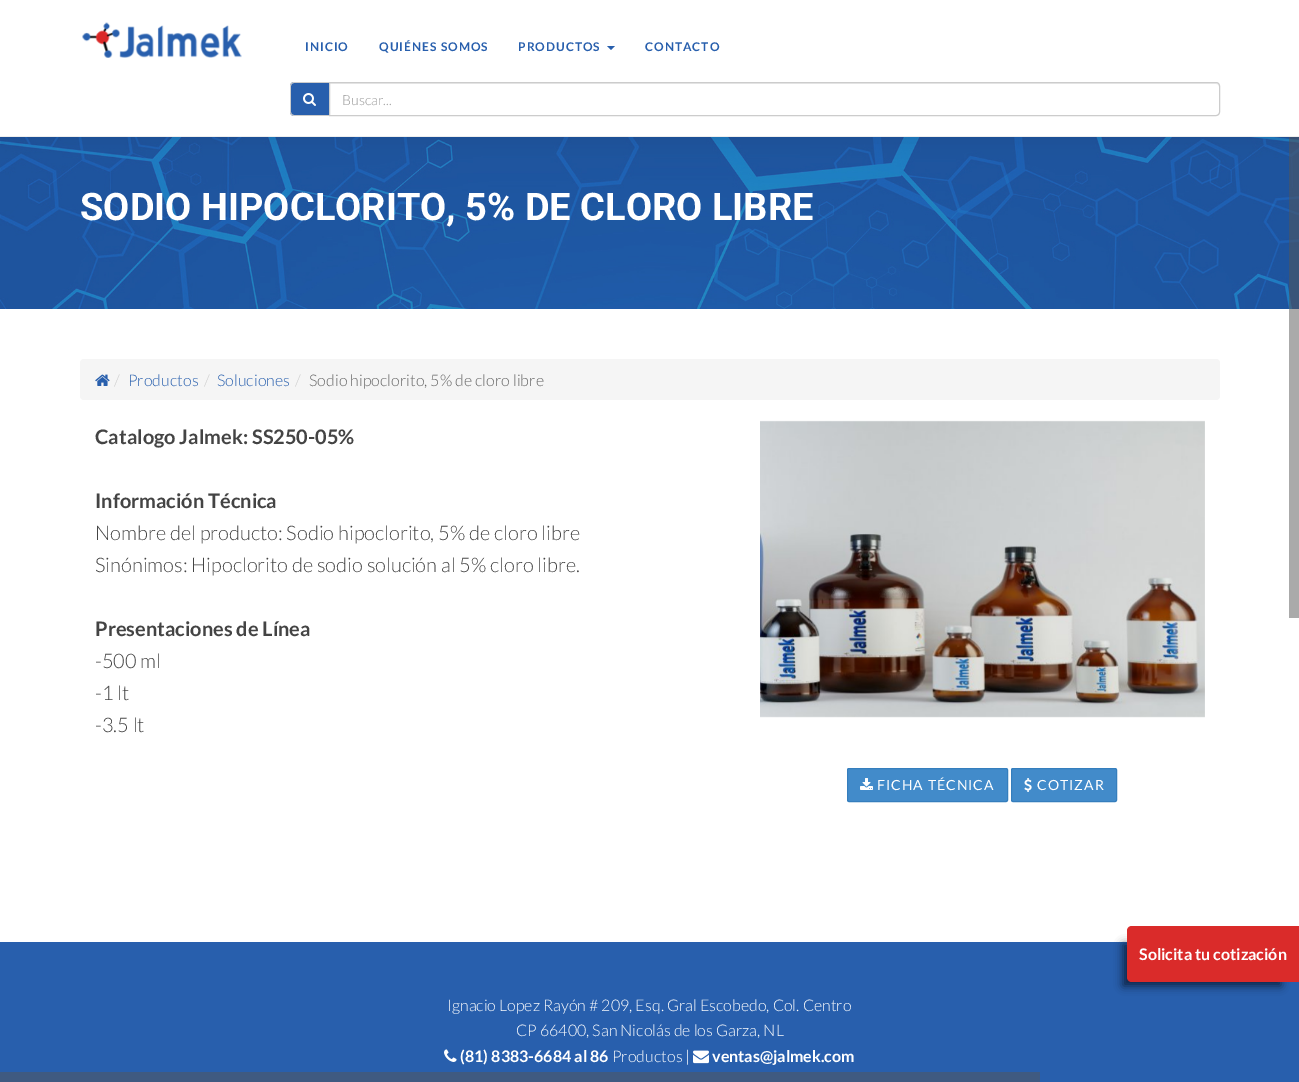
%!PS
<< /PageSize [1299 1082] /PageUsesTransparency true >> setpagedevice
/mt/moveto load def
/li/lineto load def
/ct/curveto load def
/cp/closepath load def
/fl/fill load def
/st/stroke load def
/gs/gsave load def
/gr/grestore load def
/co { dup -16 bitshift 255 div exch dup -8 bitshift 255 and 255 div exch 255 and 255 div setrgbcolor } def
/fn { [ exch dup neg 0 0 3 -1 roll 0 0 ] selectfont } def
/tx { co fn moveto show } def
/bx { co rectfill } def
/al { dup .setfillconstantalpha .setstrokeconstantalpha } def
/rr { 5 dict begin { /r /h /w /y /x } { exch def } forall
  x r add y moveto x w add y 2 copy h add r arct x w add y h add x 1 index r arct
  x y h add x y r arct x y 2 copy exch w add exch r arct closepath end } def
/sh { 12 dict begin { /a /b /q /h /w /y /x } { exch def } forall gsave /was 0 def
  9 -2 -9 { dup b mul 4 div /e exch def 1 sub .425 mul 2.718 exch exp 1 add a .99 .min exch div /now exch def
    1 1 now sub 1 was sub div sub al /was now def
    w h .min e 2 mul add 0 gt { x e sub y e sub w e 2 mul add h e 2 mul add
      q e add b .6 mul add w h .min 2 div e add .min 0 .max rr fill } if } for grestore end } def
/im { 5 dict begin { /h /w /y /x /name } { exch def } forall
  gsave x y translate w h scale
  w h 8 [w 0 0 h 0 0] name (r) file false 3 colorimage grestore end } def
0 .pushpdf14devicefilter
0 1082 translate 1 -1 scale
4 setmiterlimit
0 0 1299 1082 16#FFFFFF bx
(media/3.raw) 0 137 1299 172 im
0.5 al
1289 137 10 481 16#555555 bx
1 al
16#000000 co
0 0 1299 137 0 10 .1 sh
0 0 1299 136 16#FFFFFF bx
0 136 1299 1 16#EEEEEE bx
(media/1.raw) 82 22 160 36 im
16#285FAD co
607 46 mt 615 46 li 611 50 li cp fl
294 82 mt 329 82 li 329 116 li 294 116 li 292 116 290 114 290 112 ct 290 86 li 290 84 292 82 294 82 ct cp fl
16#CCCCCC co
294 82 mt 329 82 li 329 116 li 294 116 li 292 116 290 114 290 112 ct 290 86 li 290 84 292 82 294 82 ct cp 294 83 mt 329 83 li 329 115 li 294 115 li 292.5 115 291 113.5 291 112 ct 291 86 li 291 84.5 292.5 83 294 83 ct cp eofill
(media/2.raw) 303 93 13 13 im
16#ECECEC co
330 84 mt 1216 84 li 1218 84 1219 85 1219 87 ct 1219 85 1218 83 1216 83 ct 330 83 li cp fl
16#CCCCCC co
329.5 82.5 mt 1216 82.5 li 1218 82.5 1219.5 84 1219.5 86 ct 1219.5 112 li 1219.5 114 1218 115.5 1216 115.5 ct 329.5 115.5 li cp st
16#F5F5F5 co
80 359 1140 41 4 rr fl
(media/4.raw) 95 374 15 12 im
(media/5.raw) 760 420 445 298 im
16#428BCA co
847.5 768.5 160 33 1.5 rr gs fl gr
16#357EBD co
st
(media/6.raw) 860 778 13 12 im
16#428BCA co
1011.5 768.5 105 33 1.5 rr gs fl gr
16#357EBD co
st
(media/7.raw) 1024 778 8 14 im
0 942 1299 140 16#285FAD bx
16#000000 co
1123 944 158 42 0 4.5 .61 sh
16#DA2B2A co
1132 926 mt 1299 926 li 1299 982 li 1132 982 li 1129 982 1127 980 1127 977 ct 1127 931 li 1127 928 1129 926 1132 926 ct cp fl
(media/8.raw) 444 1049 13 13 im
(media/9.raw) 693 1050 16 14 im
0 1072 1040 10 16#3F5A81 bx
/Lato-Bold 12 fn
16#285FAD co
305 51 mt 1 0 (INICIO) ashow
379 51 mt 1 0 (QUIÉNES SOMOS) ashow
518 51 mt 1 0 (PRODUCTOS) ashow
645 51 mt 1 0 (CONTACTO) ashow
(Buscar...) 342 105 /Lato-Light 14 16#999999 tx
(SODIO HIPOCLORITO, 5% DE CLORO LIBRE) 80 220 /Roboto-Bold 38 16#FFFFFF tx
(/) 114 386 /Lato-Light 16 16#CCCCCC tx
(Productos) 128 386 /Lato-Light 16 16#285FAD tx
(/) 204 386 /Lato-Light 16 16#CCCCCC tx
(Soluciones) 217 386 /Lato-Light 16 16#285FAD tx
(/) 295 386 /Lato-Light 16 16#CCCCCC tx
(Sodio hipoclorito, 5% de cloro libre) 309 386 /Lato-Light 16 16#666666 tx
(Catalogo Jalmek: SS250-05%) 95 444 /Lato-Bold 20 16#444444 tx
(Información Técnica) 95 508 /Lato-Bold 20 16#444444 tx
(Nombre del producto: Sodio hipoclorito, 5% de cloro libre) 95 540 /Lato-Light 20 16#444444 tx
(Sinónimos: Hipoclorito de sodio solución al 5% cloro libre.) 95 572 /Lato-Light 20 16#444444 tx
(Presentaciones de Línea) 95 636 /Lato-Bold 20 16#444444 tx
(-500 ml) 95 668 /Lato-Light 20 16#444444 tx
(-1 lt) 95 700 /Lato-Light 20 16#444444 tx
(-3.5 lt) 95 732 /Lato-Light 20 16#444444 tx
/Lato-Regular 14 fn
16#FFFFFF co
877 790 mt 1 0 (FICHA TÉCNICA) ashow
1037 790 mt 1 0 (COTIZAR) ashow
(Solicita tu cotización) 1139 960 /Lato-Bold 16 16#FFFFFF tx
(Ignacio Lopez Rayón # 209, Esq. Gral Escobedo, Col. Centro) 447 1011 /Lato-Light 16 16#FFFFFF tx
(CP 66400, San Nicolás de los Garza, NL) 516 1036 /Lato-Light 16 16#FFFFFF tx
(\(81\) 8383-6684 al 86) 460 1062 /Lato-Bold 16 16#FFFFFF tx
(Productos |) 612 1062 /Lato-Light 16 16#FFFFFF tx
(ventas@jalmek.com) 712 1062 /Lato-Bold 16 16#FFFFFF tx
.poppdf14devicefilter showpage
